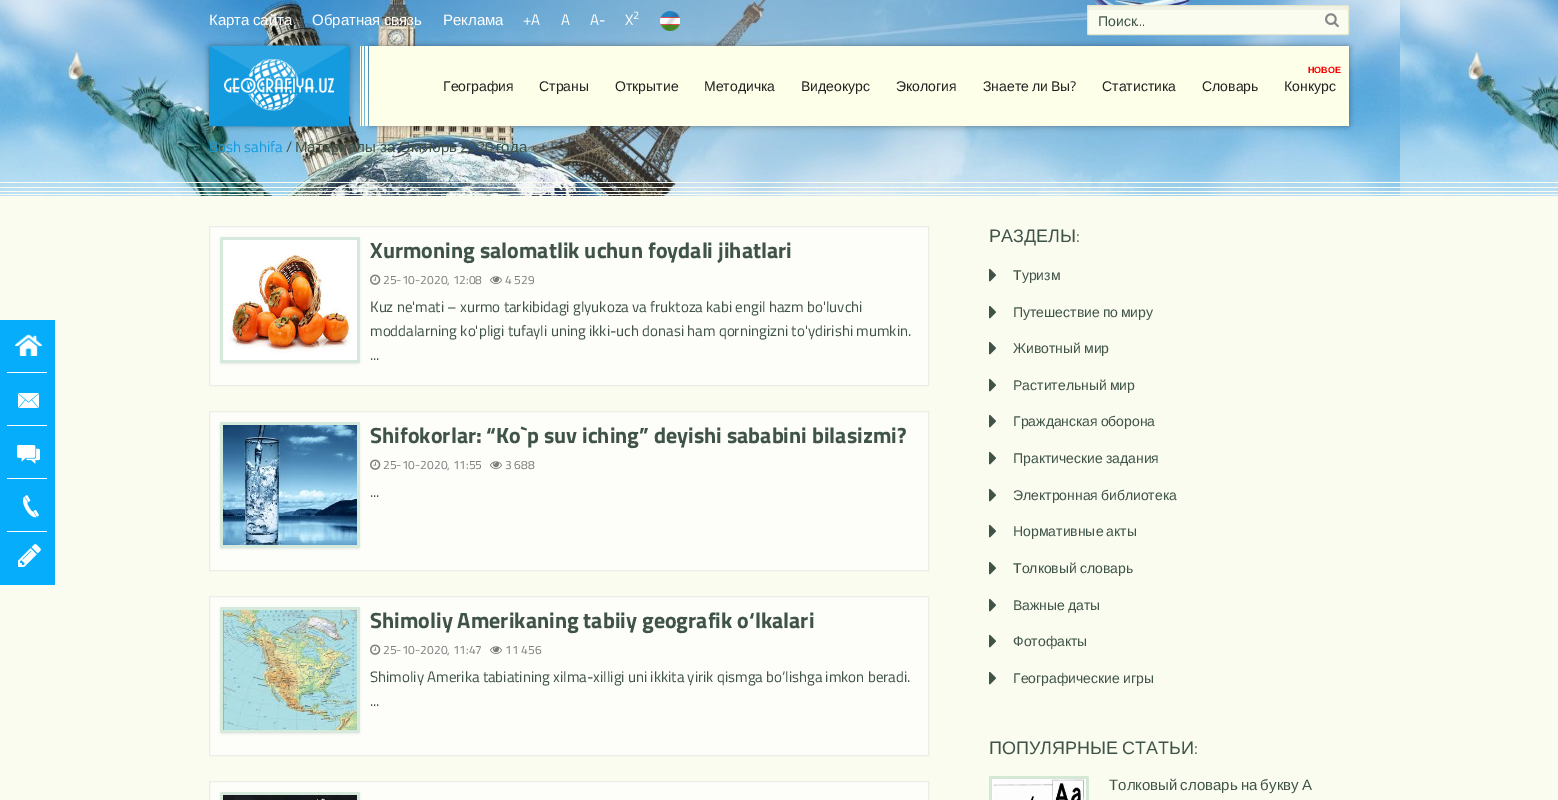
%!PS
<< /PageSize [1558 800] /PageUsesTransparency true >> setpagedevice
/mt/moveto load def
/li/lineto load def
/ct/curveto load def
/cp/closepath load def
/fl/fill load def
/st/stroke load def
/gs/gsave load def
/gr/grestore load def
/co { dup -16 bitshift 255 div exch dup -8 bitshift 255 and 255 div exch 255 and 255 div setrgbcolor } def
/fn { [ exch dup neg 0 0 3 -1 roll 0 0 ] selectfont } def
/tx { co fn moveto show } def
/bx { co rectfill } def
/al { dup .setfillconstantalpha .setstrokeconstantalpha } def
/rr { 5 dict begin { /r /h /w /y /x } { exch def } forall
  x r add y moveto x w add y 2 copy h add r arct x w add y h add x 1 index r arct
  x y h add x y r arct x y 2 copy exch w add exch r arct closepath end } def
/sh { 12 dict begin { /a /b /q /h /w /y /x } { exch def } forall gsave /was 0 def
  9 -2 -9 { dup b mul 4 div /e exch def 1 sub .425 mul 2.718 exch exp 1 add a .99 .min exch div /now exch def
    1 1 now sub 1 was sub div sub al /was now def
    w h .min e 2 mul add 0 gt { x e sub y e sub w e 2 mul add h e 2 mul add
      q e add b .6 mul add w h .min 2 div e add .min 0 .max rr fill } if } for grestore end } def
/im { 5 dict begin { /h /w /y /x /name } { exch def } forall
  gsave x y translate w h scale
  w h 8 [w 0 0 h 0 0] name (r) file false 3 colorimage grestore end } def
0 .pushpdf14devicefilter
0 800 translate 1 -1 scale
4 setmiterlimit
0 0 1558 800 16#FBFCF0 bx
(media/1.raw) 0 0 1558 196 im
(media/2.raw) 235 0 1050 196 im
(media/3.raw) 660 11 20 20 im
1087 5 262 30 2 rr fl
16#F1F2E6 co
1089 10 mt 1347 10 li 1348 10 1348 10 1348 11 ct 1348 10 1349 6 1347 6 ct 1089 6 li 1087 7 1088 10 1088 11 ct 1088 10 1088 10 1089 10 ct cp fl
16#E4E6CB co
1087.5 5.5 261 29 1.5 rr st
(media/4.raw) 1325 13 14 15 im
16#000000 co
209 46 140 80 2 3 .4 sh
16#149BDF co
209 46 140 80 2 rr fl
16#2CA5E2 co
211 46 mt 224 46 347 45 348 46 ct 279 86 li 210 46 li cp fl
16#1396D8 co
211 126 mt 224 126 347 127 348 126 ct 279 86 li 210 126 li cp fl
(media/5.raw) 224 59 110 52 im
16#000000 co
369 46 980 80 2 3 .4 sh
369 46 980 80 16#FDFFE8 bx
365 46 3 80 16#FDFFE8 bx
360 46 1 80 16#FDFFE8 bx
362 46 2 80 16#FDFFE8 bx
0 182 1558 1 16#FBFCF0 bx
0 187 1558 1 16#FBFCF0 bx
0 191 1558 1 16#FBFCF0 bx
0 194 1558 1 16#FBFCF0 bx
0 320 55 265 16#05ADFA bx
(media/6.raw) 15 334 27 22 im
7 372 40 1 16#FFFFFF bx
(media/7.raw) 18 393 21 15 im
7 425 40 1 16#FFFFFF bx
(media/8.raw) 17 445 23 19 im
7 478 40 1 16#FFFFFF bx
(media/9.raw) 22 495 17 23 im
7 531 40 1 16#FFFFFF bx
(media/10.raw) 18 544 23 23 im
16#FDFDFA co
209.5 226.5 mt 928.5 226.5 li 928.5 385.5 li 209.5 385.5 li cp gs fl gr
16#ECEDE6 co
st
16#000000 co
220 238 140 126 2 1 .07 sh
16#D5E9DC co
220 237 140 126 2 rr fl
(media/11.raw) 223 240 134 120 im
(media/12.raw) 370 274 11 11 im
(media/13.raw) 490 276 12 8 im
16#FDFDFA co
209.5 411.5 mt 928.5 411.5 li 928.5 570.5 li 209.5 570.5 li cp gs fl gr
16#ECEDE6 co
st
16#000000 co
220 423 140 126 2 1 .07 sh
16#D5E9DC co
220 422 140 126 2 rr fl
(media/14.raw) 223 425 134 120 im
(media/12.raw) 370 459 11 11 im
(media/13.raw) 490 461 12 8 im
16#FDFDFA co
209.5 596.5 mt 928.5 596.5 li 928.5 755.5 li 209.5 755.5 li cp gs fl gr
16#ECEDE6 co
st
16#000000 co
220 608 140 126 2 1 .07 sh
16#D5E9DC co
220 607 140 126 2 rr fl
(media/15.raw) 223 610 134 120 im
(media/12.raw) 370 644 11 11 im
(media/13.raw) 490 646 12 8 im
16#FDFDFA co
209.5 781.5 mt 928.5 781.5 li 928.5 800.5 li 209.5 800.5 li cp gs fl gr
16#ECEDE6 co
st
16#000000 co
220 793 140 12 2 1 .07 sh
16#D5E9DC co
220 792 140 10 2 rr fl
(media/16.raw) 223 795 134 5 im
(media/17.raw) 989 268 7 14 im
(media/17.raw) 989 305 7 14 im
(media/17.raw) 989 341 7 14 im
(media/17.raw) 989 378 7 14 im
(media/17.raw) 989 414 7 14 im
(media/17.raw) 989 451 7 14 im
(media/17.raw) 989 488 7 14 im
(media/17.raw) 989 524 7 14 im
(media/17.raw) 989 561 7 14 im
(media/17.raw) 989 598 7 14 im
(media/17.raw) 989 634 7 14 im
(media/17.raw) 989 671 7 14 im
16#D3E9D5 co
989 776 100 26 2 rr fl
(media/18.raw) 992 779 94 21 im
/LiberationSans-Regular 15 fn
16#FFFFFF co
209 25 mt -1 0 32 (Карта сайта) widthshow
312 25 mt -1 0 32 (Обратная связь) widthshow
(Реклама) 443 25 /LiberationSans-Regular 15 16#FFFFFF tx
(+A) 523 25 /TitilliumWeb-Regular 15 16#FFFFFF tx
(A) 561 25 /TitilliumWeb-Regular 15 16#FFFFFF tx
(A-) 590 25 /TitilliumWeb-Regular 15 16#FFFFFF tx
(X) 625 25 /TitilliumWeb-Regular 15 16#FFFFFF tx
(2) 633 19 /TitilliumWeb-Regular 11 16#FFFFFF tx
(Поиск) 1098 26 /LiberationSans-Regular 14 16#3F5348 tx
(...) 1136 26 /TitilliumWeb-Regular 14 16#3F5348 tx
(География) 443 91 /LiberationSans-Regular 14 16#222222 tx
(Страны) 539 91 /LiberationSans-Regular 14 16#222222 tx
(Открытие) 615 91 /LiberationSans-Regular 14 16#222222 tx
(Методичка) 704 91 /LiberationSans-Regular 14 16#222222 tx
(Видеокурс) 801 91 /LiberationSans-Regular 14 16#222222 tx
(Экология) 896 91 /LiberationSans-Regular 14 16#222222 tx
983 91 mt -1 0 32 (Знаете ли Вы) widthshow
(?) 1070 91 /TitilliumWeb-Regular 14 16#222222 tx
(Статистика) 1102 91 /LiberationSans-Regular 14 16#222222 tx
(Словарь) 1202 91 /LiberationSans-Regular 14 16#222222 tx
(НОВОЕ) 1308 73 /LiberationSans-Bold 9 16#FF0000 tx
(Конкурс) 1284 91 /LiberationSans-Regular 14 16#222222 tx
(Bosh sahifa) 209 152 /TitilliumWeb-Regular 15 16#149BDF tx
(/) 286 152 /TitilliumWeb-Regular 15 16#3F5348 tx
(Материалы за Октябрь) 295 152 /LiberationSans-Regular 15 16#3F5348 tx
(2020) 460 152 /TitilliumWeb-Regular 15 16#3F5348 tx
(года) 496 152 /LiberationSans-Regular 15 16#3F5348 tx
(Xurmoning salomatlik uchun foydali jihatlari) 370 258 /TitilliumWeb-Bold 22 16#3F5348 tx
(25-10-2020, 12:08) 383 284 /TitilliumWeb-Regular 12 16#7C7C7C tx
(4 529) 505 284 /TitilliumWeb-Regular 12 16#7C7C7C tx
(Kuz ne'mati – xurmo tarkibidagi glyukoza va fruktoza kabi engil hazm bo'luvchi) 370 312 /TitilliumWeb-Regular 15 16#3F5348 tx
(moddalarning ko'pligi tufayli uning ikki-uch donasi ham qorningizni to'ydirishi mumkin.) 370 336 /TitilliumWeb-Regular 15 16#3F5348 tx
(...) 370 360 /TitilliumWeb-Regular 15 16#3F5348 tx
(Shifokorlar: “Ko`p suv iching” deyishi sababini bilasizmi?) 370 443 /TitilliumWeb-Bold 22 16#3F5348 tx
(25-10-2020, 11:55) 383 469 /TitilliumWeb-Regular 12 16#7C7C7C tx
(3 688) 505 469 /TitilliumWeb-Regular 12 16#7C7C7C tx
(...) 370 497 /TitilliumWeb-Regular 15 16#3F5348 tx
(Shimoliy Amerikaning tabiiy geografik o‘lkalari) 370 628 /TitilliumWeb-Bold 22 16#3F5348 tx
(25-10-2020, 11:47) 383 654 /TitilliumWeb-Regular 12 16#7C7C7C tx
(11 456) 505 654 /TitilliumWeb-Regular 12 16#7C7C7C tx
(Shimoliy Amerika tabiatining xilma-xilligi uni ikkita yirik qismga bo‘lishga imkon beradi.) 370 682 /TitilliumWeb-Regular 15 16#3F5348 tx
(...) 370 706 /TitilliumWeb-Regular 15 16#3F5348 tx
(РАЗДЕЛЫ) 989 242 /LiberationSans-Regular 18 16#3F5348 tx
(:) 1076 242 /TitilliumWeb-Light 18 16#3F5348 tx
(Туризм) 1013 280 /LiberationSans-Regular 14 16#3F5348 tx
1013 317 mt -1 0 32 (Путешествие по миру) widthshow
1013 353 mt -1 0 32 (Животный мир) widthshow
1013 390 mt -1 0 32 (Растительный мир) widthshow
1013 426 mt -1 0 32 (Гражданская оборона) widthshow
1013 463 mt -1 0 32 (Практические задания) widthshow
1013 500 mt -1 0 32 (Электронная библиотека) widthshow
1013 536 mt -1 0 32 (Нормативные акты) widthshow
1013 573 mt -1 0 32 (Толковый словарь) widthshow
1013 610 mt -1 0 32 (Важные даты) widthshow
(Фотофакты) 1013 646 /LiberationSans-Regular 14 16#3F5348 tx
1013 683 mt -1 0 32 (Географические игры) widthshow
/LiberationSans-Regular 18 fn
989 754 mt -1 0 32 (ПОПУЛЯРНЫЕ СТАТЬИ) widthshow
(:) 1194 754 /TitilliumWeb-Light 18 16#3F5348 tx
/LiberationSans-Regular 15 fn
1109 790 mt -1 0 32 (Толковый словарь на букву А) widthshow
.poppdf14devicefilter showpage
